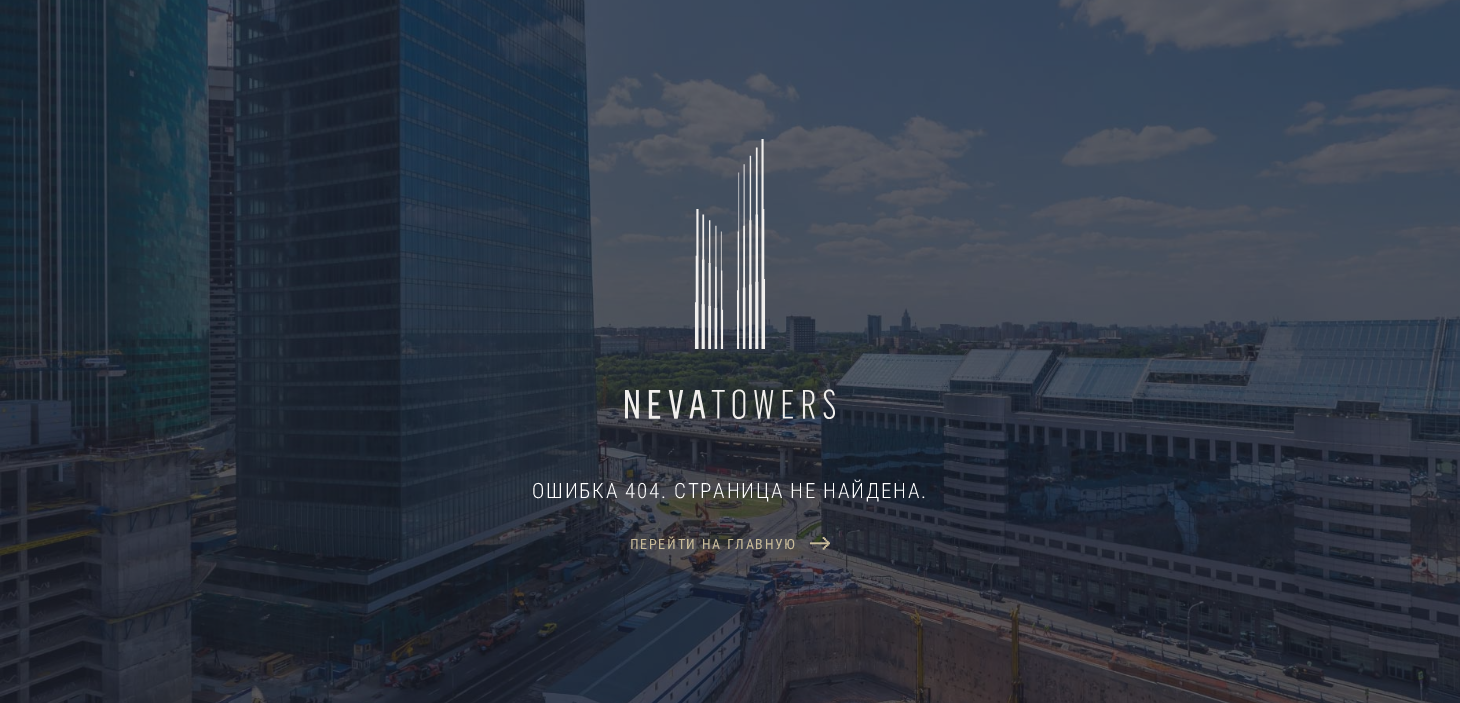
%!PS
<< /PageSize [1460 703] >> setpagedevice
/mt/moveto load def
/co { dup -16 bitshift 255 div exch dup -8 bitshift 255 and 255 div exch 255 and 255 div setrgbcolor } def
/fn { [ exch dup neg 0 0 3 -1 roll 0 0 ] selectfont } def
/bx { co rectfill } def
/im { 5 dict begin { /h /w /y /x /name } { exch def } forall
  gsave x y translate w h scale
  w h 8 [w 0 0 h 0 0] name (r) file false 3 colorimage grestore end } def
0 703 translate 1 -1 scale
4 setmiterlimit
0 0 1460 703 16#FFFFFF bx
(media/1.raw) 0 0 1460 703 im
(media/2.raw) 625 139 210 280 im
(media/3.raw) 810 537 20 13 im
/RobotoCondensed-Light 21 fn
532 498 mt 1.7 0 (ОШИБКА 404. СТРАНИЦА НЕ НАЙДЕНА.) ashow
/RobotoCondensed-Regular 14 fn
16#CABD9B co
630 549 mt 1.7 0 (ПЕРЕЙТИ НА ГЛАВНУЮ) ashow
showpage
